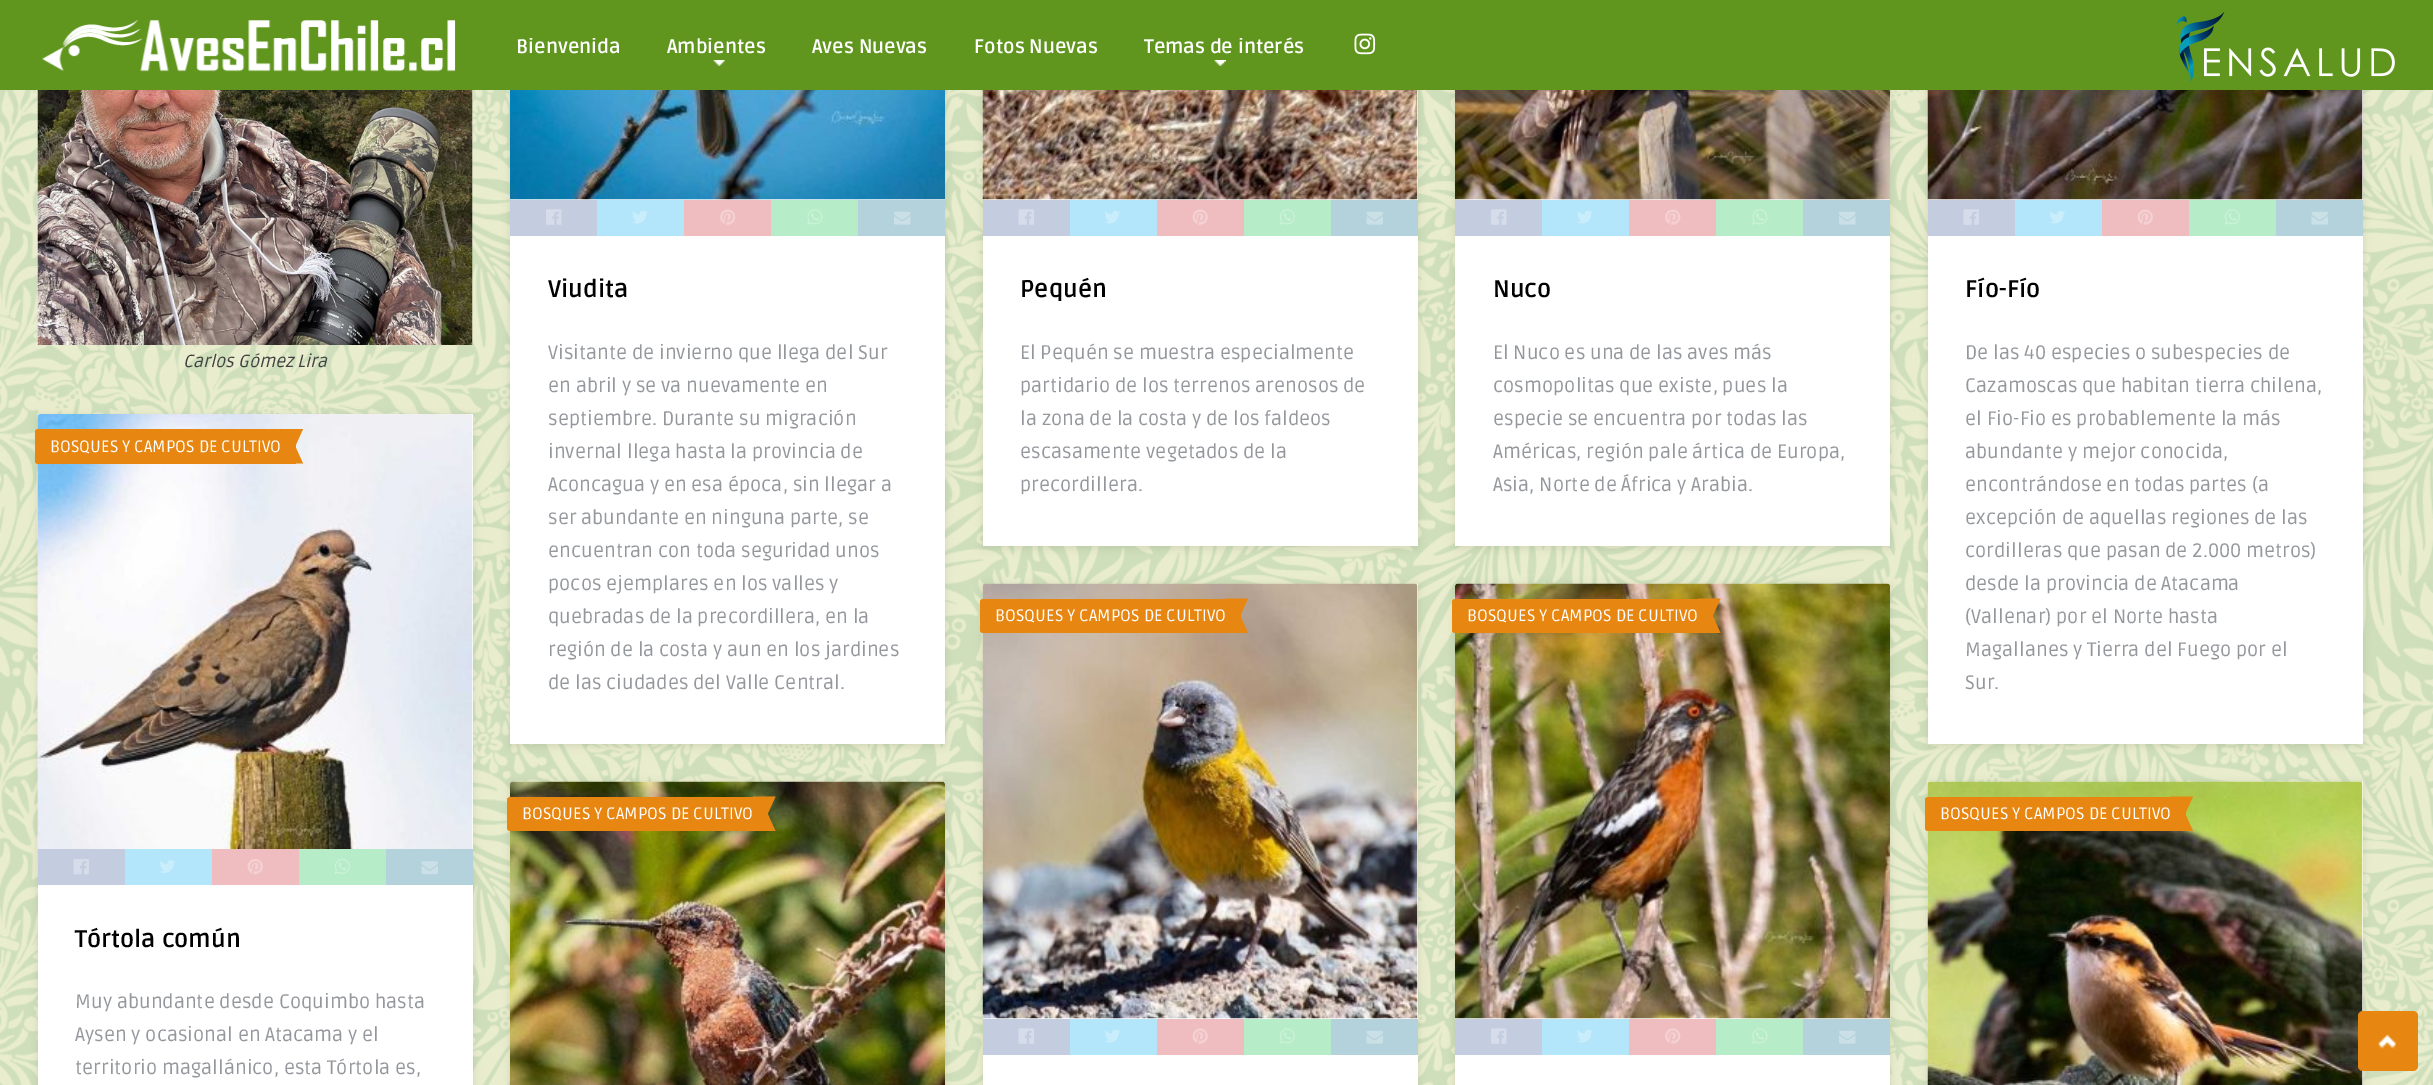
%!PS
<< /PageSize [2433 1085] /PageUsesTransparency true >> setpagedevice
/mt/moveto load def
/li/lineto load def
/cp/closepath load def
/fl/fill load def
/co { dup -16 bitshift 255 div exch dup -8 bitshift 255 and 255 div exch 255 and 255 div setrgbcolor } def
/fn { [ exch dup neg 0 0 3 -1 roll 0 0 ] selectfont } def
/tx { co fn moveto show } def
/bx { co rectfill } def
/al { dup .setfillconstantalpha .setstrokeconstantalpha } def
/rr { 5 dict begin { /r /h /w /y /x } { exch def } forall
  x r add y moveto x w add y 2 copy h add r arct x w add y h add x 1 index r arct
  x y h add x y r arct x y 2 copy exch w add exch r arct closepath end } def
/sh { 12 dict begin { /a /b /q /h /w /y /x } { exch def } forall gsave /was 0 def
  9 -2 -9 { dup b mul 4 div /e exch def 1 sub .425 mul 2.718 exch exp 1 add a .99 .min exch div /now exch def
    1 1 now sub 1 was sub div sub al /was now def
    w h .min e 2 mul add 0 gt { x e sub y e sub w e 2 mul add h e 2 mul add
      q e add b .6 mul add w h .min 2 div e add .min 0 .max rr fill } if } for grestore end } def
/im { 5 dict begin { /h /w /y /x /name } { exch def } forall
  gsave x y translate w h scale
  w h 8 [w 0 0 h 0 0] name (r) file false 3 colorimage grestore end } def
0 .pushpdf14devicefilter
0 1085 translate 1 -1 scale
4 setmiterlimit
0 0 2433 1085 16#FFFFFF bx
(media/1.raw) 0 90 2433 995 im
16#000000 co
510 -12 435 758 0 4 .1 sh
983 -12 435 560 0 4 .1 sh
1455 -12 435 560 0 4 .1 sh
1928 -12 435 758 0 4 .1 sh
0 0 2433 90 16#60961E bx
(media/2.raw) 42 20 414 52 im
(media/3.raw) 713 60 12 6 im
(media/4.raw) 1214 60 12 6 im
(media/5.raw) 1354 33 22 22 im
(media/6.raw) 2176 11 219 71 im
(media/7.raw) 37 90 436 255 im
510 199 435 545 16#FFFFFF bx
(media/8.raw) 510 90 435 110 im
510 200 87 36 16#C4CDE0 bx
(media/9.raw) 546 209 16 16 im
597 200 87 36 16#B3E6FA bx
(media/10.raw) 632 210 16 14 im
684 200 87 36 16#EFBCBF bx
(media/11.raw) 720 209 16 16 im
771 200 87 36 16#B6ECC7 bx
(media/12.raw) 807 209 16 16 im
858 200 87 36 16#B3D2DC bx
(media/13.raw) 894 211 17 14 im
983 90 435 456 16#FFFFFF bx
(media/14.raw) 982 90 436 110 im
983 200 87 36 16#C4CDE0 bx
(media/15.raw) 1018 209 16 16 im
1070 200 87 36 16#B3E6FA bx
(media/16.raw) 1105 210 15 14 im
1157 200 87 36 16#EFBCBF bx
(media/17.raw) 1192 209 16 16 im
1244 200 87 36 16#B6ECC7 bx
(media/18.raw) 1279 209 16 16 im
1331 200 87 36 16#B3D2DC bx
(media/19.raw) 1366 211 17 14 im
1455 199 435 347 16#FFFFFF bx
(media/20.raw) 1455 90 435 110 im
1455 200 87 36 16#C4CDE0 bx
(media/9.raw) 1491 209 16 16 im
1542 200 87 36 16#B3E6FA bx
(media/10.raw) 1577 210 16 14 im
1629 200 87 36 16#EFBCBF bx
(media/11.raw) 1665 209 16 16 im
1716 200 87 36 16#B6ECC7 bx
(media/12.raw) 1752 209 16 16 im
1803 200 87 36 16#B3D2DC bx
(media/13.raw) 1839 211 17 14 im
1928 90 435 654 16#FFFFFF bx
(media/21.raw) 1927 90 436 110 im
1928 200 87 36 16#C4CDE0 bx
(media/15.raw) 1963 209 16 16 im
2015 200 87 36 16#B3E6FA bx
(media/16.raw) 2050 210 15 14 im
2102 200 87 36 16#EFBCBF bx
(media/17.raw) 2137 209 16 16 im
2189 200 87 36 16#B6ECC7 bx
(media/18.raw) 2224 209 16 16 im
2276 200 87 36 16#B3D2DC bx
(media/19.raw) 2311 211 17 14 im
16#000000 co
38 416 435 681 0 4 .1 sh
38 414 435 671 16#FFFFFF bx
(media/22.raw) 37 414 436 435 im
16#E78712 co
35 429 261 35 3 rr fl
280.5 429 mt 303 429 li 295.5 445.5 li cp 303 463.5 mt 280.5 463.5 li 295.5 447 li cp fl
293 463 3 1 16#E78712 bx
38 849 87 36 16#C4CDE0 bx
(media/23.raw) 73 859 16 16 im
125 849 87 36 16#B3E6FA bx
(media/24.raw) 160 860 15 13 im
212 849 87 36 16#EFBCBF bx
(media/25.raw) 247 859 16 16 im
299 849 87 36 16#B6ECC7 bx
(media/26.raw) 334 858 16 16 im
386 849 87 36 16#B3D2DC bx
(media/27.raw) 421 861 17 14 im
16#000000 co
983 585 435 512 0 4 .1 sh
983 584 435 501 16#FFFFFF bx
(media/28.raw) 982 583 436 436 im
16#E78712 co
980 599 261 34 3 rr fl
1225.5 598.5 mt 1248 598.5 li 1240.5 615 li cp 1248 633 mt 1225.5 633 li 1240.5 616.5 li cp fl
983 1019 87 36 16#C4CDE0 bx
(media/15.raw) 1018 1028 16 16 im
1070 1019 87 36 16#B3E6FA bx
(media/16.raw) 1105 1029 15 14 im
1157 1019 87 36 16#EFBCBF bx
(media/17.raw) 1192 1028 16 16 im
1244 1019 87 36 16#B6ECC7 bx
(media/18.raw) 1279 1028 16 16 im
1331 1019 87 36 16#B3D2DC bx
(media/19.raw) 1366 1030 17 14 im
16#000000 co
1455 585 435 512 0 4 .1 sh
1455 584 435 501 16#FFFFFF bx
(media/29.raw) 1455 583 435 436 im
16#E78712 co
1452 599 261 34 3 rr fl
1698 598.5 mt 1720.5 598.5 li 1713 615 li cp 1720.5 633 mt 1698 633 li 1713 616.5 li cp fl
1455 1019 87 36 16#C4CDE0 bx
(media/9.raw) 1491 1028 16 16 im
1542 1019 87 36 16#B3E6FA bx
(media/10.raw) 1577 1029 16 14 im
1629 1019 87 36 16#EFBCBF bx
(media/11.raw) 1665 1028 16 16 im
1716 1019 87 36 16#B6ECC7 bx
(media/12.raw) 1752 1028 16 16 im
1803 1019 87 36 16#B3D2DC bx
(media/13.raw) 1839 1030 17 14 im
16#000000 co
510 783 435 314 0 4 .1 sh
510 782 435 3 16#FFFFFF bx
(media/30.raw) 510 781 435 304 im
16#E78712 co
507 797 261 34 3 rr fl
753 796.5 mt 775.5 796.5 li 768 813 li cp 775.5 831 mt 753 831 li 768 814.5 li cp fl
16#000000 co
1928 783 435 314 0 4 .1 sh
1928 782 435 303 16#FFFFFF bx
(media/31.raw) 1927 781 436 304 im
16#E78712 co
1925 797 261 34 3 rr fl
2170.5 796.5 mt 2193 796.5 li 2185.5 813 li cp 2193 831 mt 2170.5 831 li 2185.5 814.5 li cp fl
2358 1011 60 60 5 rr fl
(media/32.raw) 2377 1034 19 15 im
(Bienvenida) 516 53 /Ruda-Bold 19.5 16#FFFFFF tx
(Ambientes) 667 53 /Ruda-Bold 19.5 16#FFFFFF tx
(Aves Nuevas) 812 53 /Ruda-Bold 19.5 16#FFFFFF tx
(Fotos Nuevas) 974 53 /Ruda-Bold 19.5 16#FFFFFF tx
(Temas de interés) 1144 53 /Ruda-Bold 19.5 16#FFFFFF tx
(Carlos Gómez Lira) 183 367 /Ruda-Italic 17.5 16#414141 tx
(Viudita) 548 297 /Ruda-Bold 24 16#000000 tx
(Visitante de invierno que llega del Sur) 548 359 /Ruda-Regular 19.5 16#94979C tx
(en abril y se va nuevamente en) 548 392 /Ruda-Regular 19.5 16#94979C tx
(septiembre. Durante su migración) 548 425 /Ruda-Regular 19.5 16#94979C tx
(invernal llega hasta la provincia de) 548 458 /Ruda-Regular 19.5 16#94979C tx
(Aconcagua y en esa época, sin llegar a) 548 491 /Ruda-Regular 19.5 16#94979C tx
(ser abundante en ninguna parte, se) 548 524 /Ruda-Regular 19.5 16#94979C tx
(encuentran con toda seguridad unos) 548 557 /Ruda-Regular 19.5 16#94979C tx
(pocos ejemplares en los valles y) 548 590 /Ruda-Regular 19.5 16#94979C tx
(quebradas de la precordillera, en la) 548 623 /Ruda-Regular 19.5 16#94979C tx
(región de la costa y aun en los jardines) 548 656 /Ruda-Regular 19.5 16#94979C tx
(de las ciudades del Valle Central.) 548 689 /Ruda-Regular 19.5 16#94979C tx
(Pequén) 1020 297 /Ruda-Bold 24 16#000000 tx
(El Pequén se muestra especialmente) 1020 359 /Ruda-Regular 19.5 16#94979C tx
(partidario de los terrenos arenosos de) 1020 392 /Ruda-Regular 19.5 16#94979C tx
(la zona de la costa y de los faldeos) 1020 425 /Ruda-Regular 19.5 16#94979C tx
(escasamente vegetados de la) 1020 458 /Ruda-Regular 19.5 16#94979C tx
(precordillera.) 1020 491 /Ruda-Regular 19.5 16#94979C tx
(Nuco) 1493 297 /Ruda-Bold 24 16#000000 tx
(El Nuco es una de las aves más) 1493 359 /Ruda-Regular 19.5 16#94979C tx
(cosmopolitas que existe, pues la) 1493 392 /Ruda-Regular 19.5 16#94979C tx
(especie se encuentra por todas las) 1493 425 /Ruda-Regular 19.5 16#94979C tx
(Américas, región pale ártica de Europa,) 1493 458 /Ruda-Regular 19.5 16#94979C tx
(Asia, Norte de África y Arabia.) 1493 491 /Ruda-Regular 19.5 16#94979C tx
(Fío-Fío) 1965 297 /Ruda-Bold 24 16#000000 tx
(De las 40 especies o subespecies de) 1965 359 /Ruda-Regular 19.5 16#94979C tx
(Cazamoscas que habitan tierra chilena,) 1965 392 /Ruda-Regular 19.5 16#94979C tx
(el Fio-Fio es probablemente la más) 1965 425 /Ruda-Regular 19.5 16#94979C tx
(abundante y mejor conocida,) 1965 458 /Ruda-Regular 19.5 16#94979C tx
(encontrándose en todas partes \(a) 1965 491 /Ruda-Regular 19.5 16#94979C tx
(excepción de aquellas regiones de las) 1965 524 /Ruda-Regular 19.5 16#94979C tx
(cordilleras que pasan de 2.000 metros\)) 1965 557 /Ruda-Regular 19.5 16#94979C tx
(desde la provincia de Atacama) 1965 590 /Ruda-Regular 19.5 16#94979C tx
(\(Vallenar\) por el Norte hasta) 1965 623 /Ruda-Regular 19.5 16#94979C tx
(Magallanes y Tierra del Fuego por el) 1965 656 /Ruda-Regular 19.5 16#94979C tx
(Sur.) 1965 689 /Ruda-Regular 19.5 16#94979C tx
(BOSQUES Y CAMPOS DE CULTIVO) 50 452 /Ruda-Regular 16.5 16#FFFFFF tx
(Tórtola común) 75 947 /Ruda-Bold 24 16#000000 tx
(Muy abundante desde Coquimbo hasta) 75 1008 /Ruda-Regular 19.5 16#94979C tx
(Aysen y ocasional en Atacama y el) 75 1041 /Ruda-Regular 19.5 16#94979C tx
(territorio magallánico, esta Tórtola es,) 75 1074 /Ruda-Regular 19.5 16#94979C tx
(BOSQUES Y CAMPOS DE CULTIVO) 995 621 /Ruda-Regular 16.5 16#FFFFFF tx
(BOSQUES Y CAMPOS DE CULTIVO) 1467 621 /Ruda-Regular 16.5 16#FFFFFF tx
(BOSQUES Y CAMPOS DE CULTIVO) 522 819 /Ruda-Regular 16.5 16#FFFFFF tx
(BOSQUES Y CAMPOS DE CULTIVO) 1940 819 /Ruda-Regular 16.5 16#FFFFFF tx
.poppdf14devicefilter showpage
